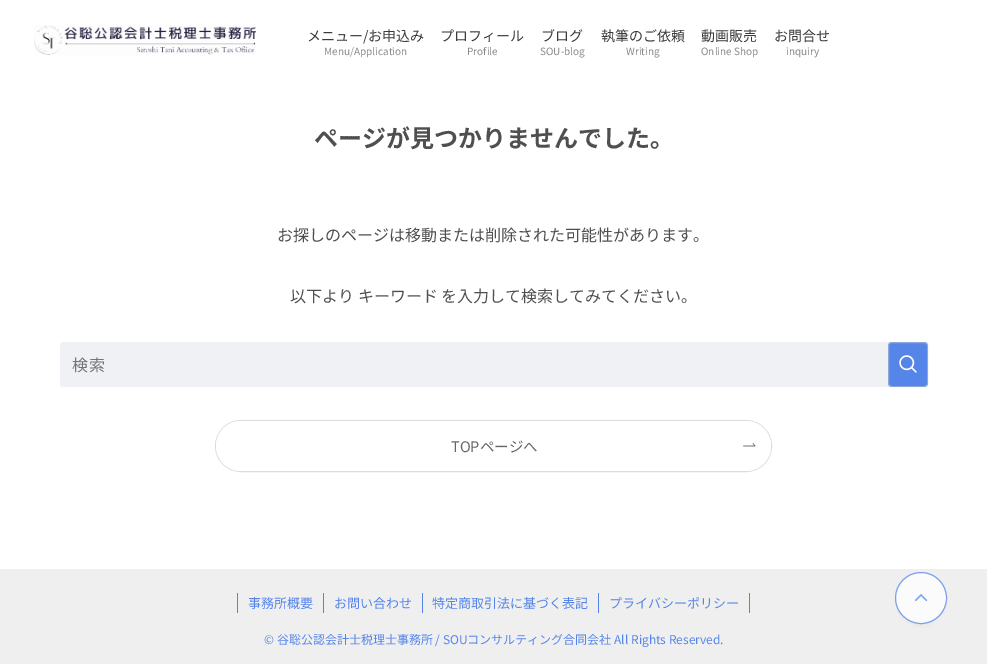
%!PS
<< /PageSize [987 664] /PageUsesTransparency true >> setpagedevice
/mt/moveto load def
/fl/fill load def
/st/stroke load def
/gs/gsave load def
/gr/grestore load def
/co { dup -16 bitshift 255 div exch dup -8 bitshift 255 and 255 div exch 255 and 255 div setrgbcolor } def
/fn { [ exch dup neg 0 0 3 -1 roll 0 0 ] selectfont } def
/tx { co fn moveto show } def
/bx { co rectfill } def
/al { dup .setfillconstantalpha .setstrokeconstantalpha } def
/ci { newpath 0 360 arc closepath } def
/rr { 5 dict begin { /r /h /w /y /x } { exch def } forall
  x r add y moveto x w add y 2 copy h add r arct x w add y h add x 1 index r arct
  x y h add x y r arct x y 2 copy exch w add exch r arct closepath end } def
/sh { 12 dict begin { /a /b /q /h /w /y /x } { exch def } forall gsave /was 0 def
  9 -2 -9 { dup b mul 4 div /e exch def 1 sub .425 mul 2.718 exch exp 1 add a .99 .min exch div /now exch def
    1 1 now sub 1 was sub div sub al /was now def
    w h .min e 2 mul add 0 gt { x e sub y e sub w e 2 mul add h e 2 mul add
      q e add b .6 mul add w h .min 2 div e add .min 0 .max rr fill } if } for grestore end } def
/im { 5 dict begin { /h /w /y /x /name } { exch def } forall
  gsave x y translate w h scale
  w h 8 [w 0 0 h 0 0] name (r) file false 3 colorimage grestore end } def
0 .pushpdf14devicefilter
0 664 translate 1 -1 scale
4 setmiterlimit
0 0 987 664 16#FFFFFF bx
(media/1.raw) 34 25 222 30 im
16#EFF1F5 co
60 342 868 45 3 rr fl
16#5685EA co
888 342 40 45 4 rr fl
0.5 al
16#C7C7C7 co
888.5 342.5 39 44 3.5 rr st
1 al
(media/2.raw) 899 355 18 18 im
16#DCDCDC co
215.5 420.5 556 51 25.5 rr st
16#FFFFFF co
216 421 555 50 25 rr fl
(media/3.raw) 743 443 13 4 im
0 569 987 95 16#EFEFEF bx
323 593 1 20 16#5685EA bx
237 593 1 20 16#5685EA bx
422 593 1 20 16#5685EA bx
598 593 1 20 16#5685EA bx
749 593 1 20 16#5685EA bx
16#3C3C3C co
899 580 44 44 22 2 .1 sh
16#FBFBFB co
921 598 25.5 ci gs fl gr
16#7CA0EB co
st
(media/4.raw) 914 594 14 8 im
(メニュー/お申込み) 307 41 /NotoSansJP-Regular 14 16#3A3A3A tx
(Menu/Application) 324 55 /NotoSansJP-Regular 10 16#888888 tx
(プロフィール) 440 41 /NotoSansJP-Regular 14 16#3A3A3A tx
(Profile) 467 55 /NotoSansJP-Regular 10 16#888888 tx
(ブログ) 541 41 /NotoSansJP-Regular 14 16#3A3A3A tx
(SOU-blog) 540 55 /NotoSansJP-Regular 10 16#888888 tx
(執筆のご依頼) 601 41 /NotoSansJP-Regular 14 16#3A3A3A tx
(Writing) 626 55 /NotoSansJP-Regular 10 16#888888 tx
(動画販売) 701 41 /NotoSansJP-Regular 14 16#3A3A3A tx
(Online Shop) 701 55 /NotoSansJP-Regular 10 16#888888 tx
(お問合せ) 774 41 /NotoSansJP-Regular 14 16#3A3A3A tx
(inquiry) 786 55 /NotoSansJP-Regular 10 16#888888 tx
(ページが見つかりませんでした。) 314 147 /NotoSansJP-Bold 24 16#4F4F4F tx
(お探しのページは移動または削除された可能性があります。) 277 241 /NotoSansJP-Regular 16 16#4F4F4F tx
(以下より キーワード を入力して検索してみてください。) 290 302 /NotoSansJP-Regular 16 16#4F4F4F tx
16#757575 co
72 371 mt 1 0 (検索) ashow
(TOPページへ) 451 452 /NotoSansJP-Regular 14.5 16#666666 tx
(事務所概要) 248 608 /NotoSansJP-Regular 13 16#5685EA tx
(お問い合わせ) 334 608 /NotoSansJP-Regular 13 16#5685EA tx
(特定商取引法に基づく表記) 432 608 /NotoSansJP-Regular 13 16#5685EA tx
(プライバシーポリシー) 609 608 /NotoSansJP-Regular 13 16#5685EA tx
(© 谷聡公認会計士税理士事務所 / SOUコンサルティング合同会社 All Rights Reserved.) 264 644 /NotoSansJP-Regular 12 16#5685EA tx
.poppdf14devicefilter showpage
